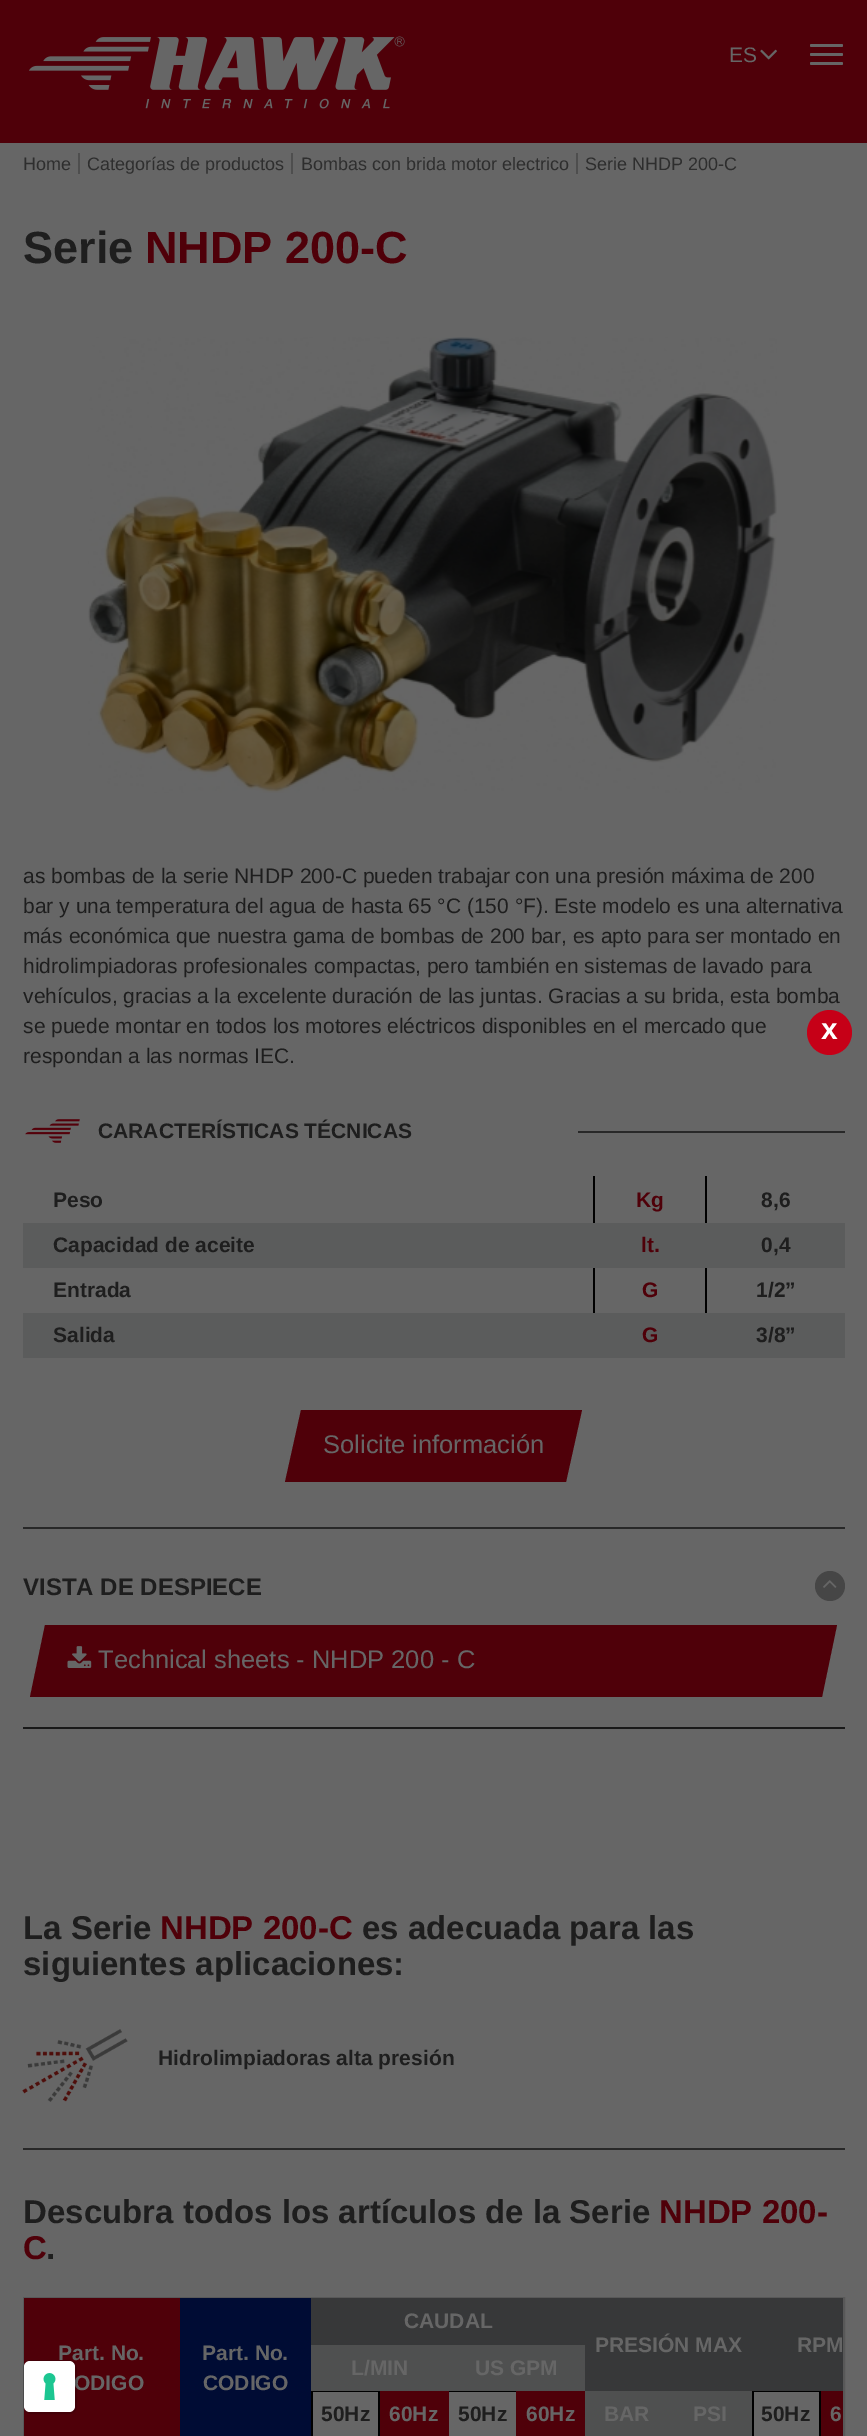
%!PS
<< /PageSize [867 2436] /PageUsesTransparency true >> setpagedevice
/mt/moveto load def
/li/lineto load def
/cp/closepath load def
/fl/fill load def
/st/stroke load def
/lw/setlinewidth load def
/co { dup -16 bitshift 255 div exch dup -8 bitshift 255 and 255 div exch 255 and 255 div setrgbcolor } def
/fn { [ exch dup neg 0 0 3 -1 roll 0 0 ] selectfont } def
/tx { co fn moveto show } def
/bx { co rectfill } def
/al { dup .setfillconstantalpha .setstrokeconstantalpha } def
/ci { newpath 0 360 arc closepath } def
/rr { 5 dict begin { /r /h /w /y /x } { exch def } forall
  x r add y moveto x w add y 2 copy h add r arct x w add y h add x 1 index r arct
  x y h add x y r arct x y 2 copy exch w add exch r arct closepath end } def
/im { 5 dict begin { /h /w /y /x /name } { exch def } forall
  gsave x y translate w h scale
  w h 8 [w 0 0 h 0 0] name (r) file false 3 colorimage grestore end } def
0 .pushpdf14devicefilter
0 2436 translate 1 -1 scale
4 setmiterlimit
0 0 867 2436 16#666666 bx
0 0 867 143 16#4F0009 bx
(media/1.raw) 29 36 376 73 im
(media/2.raw) 760 49 17 11 im
16#666666 co
810 44 33 3 1.5 rr fl
810 53 33 3 1.5 rr fl
810 62 33 3 1.5 rr fl
78 153 2 21 16#4E4E4E bx
291 153 2 21 16#4E4E4E bx
576 153 2 21 16#4E4E4E bx
(media/3.raw) 88 337 689 456 im
(media/4.raw) 25 1119 55 24 im
578 1131 267 2 16#282828 bx
593 1176 2 47 16#000000 bx
705 1176 2 47 16#000000 bx
593 1266 2 47 16#000000 bx
705 1266 2 47 16#000000 bx
23 1223 822 45 16#5B5C5C bx
23 1313 822 45 16#5B5C5C bx
16#4F0009 co
301 1410 mt 582 1410 li 566 1482 li 285 1482 li cp fl
23 1527 822 2 16#282828 bx
23 1727 822 2 16#191919 bx
16#464646 co
830 1586 15 ci fl
(media/5.raw) 823 1580 14 8 im
16#4F0009 co
45 1625 mt 837 1625 li 822 1697 li 30 1697 li cp fl
(media/6.raw) 67 1646 25 22 im
(media/7.raw) 22 2029 106 73 im
23 2148 822 2 16#282828 bx
16#585858 co
2 lw
24 2298 820 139 rectstroke
311 2298 274 47 16#373839 bx
24 2298 156 138 16#4F0009 bx
378 2390 2 46 16#000000 bx
311 2391 69 1 16#000000 bx
311 2391 2 45 16#000000 bx
180 2298 131 138 16#000C34 bx
819 2390 2 46 16#000000 bx
752 2391 69 1 16#000000 bx
752 2390 2 46 16#000000 bx
585 2298 258 93 16#373839 bx
311 2345 274 46 16#4F5050 bx
447 2391 71 1 16#000000 bx
380 2391 69 45 16#4F0009 bx
516 2391 69 45 16#4F0009 bx
585 2391 167 45 16#4F5050 bx
821 2391 22 45 16#4F0009 bx
16#C60017 co
829.5 1032.5 22.5 ci fl
(ES) 729 62 /LiberationSans-Regular 21 16#666666 tx
(Home) 23 170 /LiberationSans-Regular 18 16#2E2E2E tx
(Categorías de productos) 87 170 /LiberationSans-Regular 18 16#2E2E2E tx
(Bombas con brida motor electrico) 301 170 /LiberationSans-Regular 18 16#2E2E2E tx
(Serie NHDP 200-C) 585 170 /LiberationSans-Regular 18 16#2E2E2E tx
(Serie) 23 263 /LiberationSans-Bold 45 16#1E1E1E tx
(NHDP 200-C) 145 263 /LiberationSans-Bold 45 16#4F0009 tx
(as bombas de la serie NHDP 200-C pueden trabajar con una presión máxima de 200) 23 883 /LiberationSans-Regular 21 16#1E1E1E tx
(bar y una temperatura del agua de hasta 65 °C \(150 °F\). Este modelo es una alternativa) 23 913 /LiberationSans-Regular 21 16#1E1E1E tx
(más económica que nuestra gama de bombas de 200 bar, es apto para ser montado en) 23 943 /LiberationSans-Regular 21 16#1E1E1E tx
(hidrolimpiadoras profesionales compactas, pero también en sistemas de lavado para) 23 973 /LiberationSans-Regular 21 16#1E1E1E tx
(vehículos, gracias a la excelente duración de las juntas. Gracias a su brida, esta bomba) 23 1003 /LiberationSans-Regular 21 16#1E1E1E tx
(se puede montar en todos los motores eléctricos disponibles en el mercado que) 23 1033 /LiberationSans-Regular 21 16#1E1E1E tx
(respondan a las normas IEC.) 23 1063 /LiberationSans-Regular 21 16#1E1E1E tx
(CARACTERÍSTICAS TÉCNICAS) 98 1138 /LiberationSans-Bold 21 16#1E1E1E tx
(Peso) 53 1207 /LiberationSans-Bold 21 16#1E1E1E tx
(Kg) 636 1207 /LiberationSans-Bold 21 16#4F0009 tx
(8,6) 761 1207 /LiberationSans-Bold 21 16#1E1E1E tx
(Capacidad de aceite) 53 1252 /LiberationSans-Bold 21 16#1E1E1E tx
(lt.) 641 1252 /LiberationSans-Bold 21 16#4F0009 tx
(0,4) 761 1252 /LiberationSans-Bold 21 16#1E1E1E tx
(Entrada) 53 1297 /LiberationSans-Bold 21 16#1E1E1E tx
(G) 642 1297 /LiberationSans-Bold 21 16#4F0009 tx
(1/2”) 756 1297 /LiberationSans-Bold 21 16#1E1E1E tx
(Salida) 53 1342 /LiberationSans-Bold 21 16#1E1E1E tx
(G) 642 1342 /LiberationSans-Bold 21 16#4F0009 tx
(3/8”) 756 1342 /LiberationSans-Bold 21 16#1E1E1E tx
(Solicite información) 323 1453 /LiberationSans-Regular 25.5 16#666666 tx
(VISTA DE DESPIECE) 23 1595 /LiberationSans-Bold 24 16#1E1E1E tx
(Technical sheets - NHDP 200 - C) 98 1668 /LiberationSans-Regular 25.5 16#666666 tx
(La Serie) 23 1939 /LiberationSans-Bold 33 16#1E1E1E tx
(NHDP 200-C) 160 1939 /LiberationSans-Bold 33 16#4F0009 tx
(es adecuada para las) 362 1939 /LiberationSans-Bold 33 16#1E1E1E tx
(siguientes aplicaciones:) 23 1975 /LiberationSans-Bold 33 16#1E1E1E tx
(Hidrolimpiadoras alta presión) 158 2065 /LiberationSans-Bold 21 16#1E1E1E tx
(Descubra todos los artículos de la Serie) 23 2223 /LiberationSans-Bold 33 16#1E1E1E tx
(NHDP 200-) 659 2223 /LiberationSans-Bold 33 16#4F0009 tx
(C) 23 2259 /LiberationSans-Bold 33 16#4F0009 tx
(.) 46 2259 /LiberationSans-Bold 33 16#1E1E1E tx
(CAUDAL) 404 2328 /LiberationSans-Bold 21 16#666666 tx
(Part. No.) 58 2360 /LiberationSans-Bold 21 16#666666 tx
(ODIGO) 74 2390 /LiberationSans-Bold 21 16#666666 tx
(Part. No.) 202 2360 /LiberationSans-Bold 21 16#666666 tx
(CODIGO) 203 2390 /LiberationSans-Bold 21 16#666666 tx
(PRESIÓN MAX) 595 2352 /LiberationSans-Bold 21 16#666666 tx
(RPM) 797 2352 /LiberationSans-Bold 21 16#666666 tx
(L/MIN) 351 2375 /LiberationSans-Bold 21 16#666666 tx
(US GPM) 475 2375 /LiberationSans-Bold 21 16#666666 tx
(50Hz) 321 2421 /LiberationSans-Bold 21 16#1E1E1E tx
(60Hz) 389 2421 /LiberationSans-Bold 21 16#666666 tx
(50Hz) 458 2421 /LiberationSans-Bold 21 16#1E1E1E tx
(60Hz) 526 2421 /LiberationSans-Bold 21 16#666666 tx
(BAR) 604 2421 /LiberationSans-Bold 21 16#666666 tx
(PSI) 693 2421 /LiberationSans-Bold 21 16#666666 tx
(50Hz) 761 2421 /LiberationSans-Bold 21 16#1E1E1E tx
(6) 830 2421 /LiberationSans-Bold 21 16#666666 tx
(x) 821 1039 /LiberationSans-Bold 30 16#FFFFFF tx
0.15 al
16#000000 co
24 2361 52 52 7 rr st
1 al
16#FFFFFF co
24 2361 51 51 6 rr fl
(media/8.raw) 43 2373 13 27 im
.poppdf14devicefilter showpage
